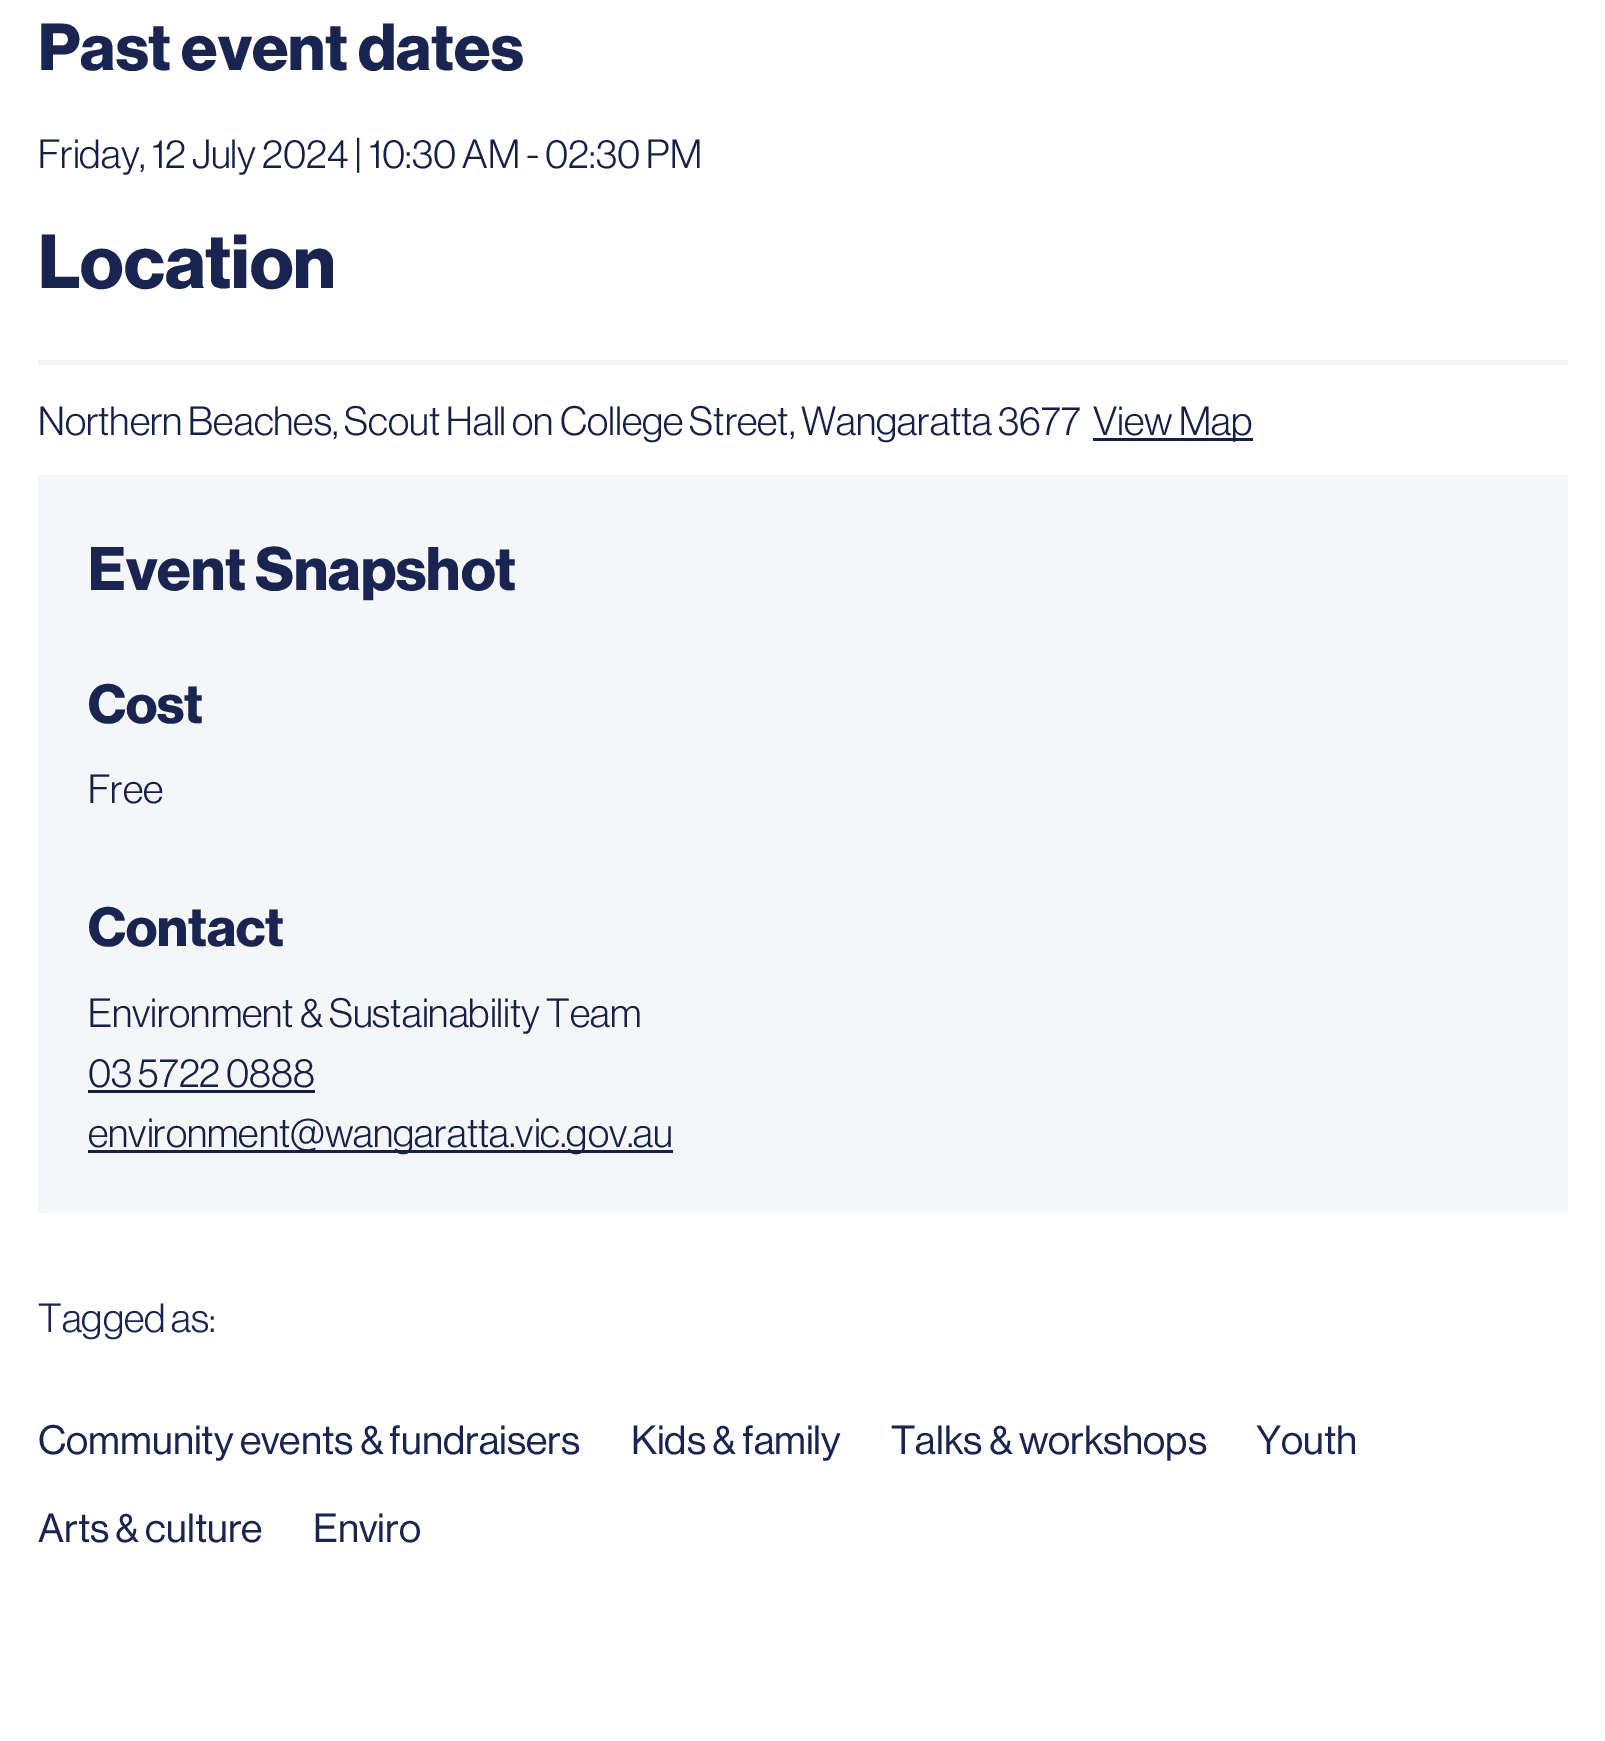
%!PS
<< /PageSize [1605 1741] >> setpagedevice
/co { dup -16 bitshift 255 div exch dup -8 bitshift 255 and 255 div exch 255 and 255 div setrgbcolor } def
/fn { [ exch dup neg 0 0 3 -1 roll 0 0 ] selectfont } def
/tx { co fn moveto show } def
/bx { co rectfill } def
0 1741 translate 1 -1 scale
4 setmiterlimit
0 0 1605 1741 16#FFFFFF bx
38 360 1530 5 16#F2F3F4 bx
1093 438 160 3 16#162046 bx
38 475 1530 738 16#F4F6F8 bx
88 1090 227 3 16#162046 bx
88 1150 585 3 16#162046 bx
(Past event dates) 38 70 /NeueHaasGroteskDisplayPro-Bold 65 16#192550 tx
(Friday, 12 July 2024 | 10:30 AM - 02:30 PM) 38 168 /NeueHaasGroteskDisplayPro-Regular 40 16#162046 tx
(Location) 38 288 /NeueHaasGroteskDisplayPro-Bold 75 16#192550 tx
(Northern Beaches, Scout Hall on College Street, Wangaratta 3677) 38 435 /NeueHaasGroteskDisplayPro-Regular 40 16#162046 tx
(View Map) 1093 435 /NeueHaasGroteskDisplayPro-Regular 40 16#162046 tx
(Event Snapshot) 88 590 /NeueHaasGroteskDisplayPro-Bold 60 16#192550 tx
(Cost) 88 723 /NeueHaasGroteskDisplayPro-Bold 54 16#192550 tx
(Free) 88 803 /NeueHaasGroteskDisplayPro-Regular 40 16#162046 tx
(Contact) 88 946 /NeueHaasGroteskDisplayPro-Bold 54 16#192550 tx
(Environment & Sustainability Team) 88 1027 /NeueHaasGroteskDisplayPro-Regular 40 16#162046 tx
(03 5722 0888) 88 1087 /NeueHaasGroteskDisplayPro-Regular 40 16#162046 tx
(environment@wangaratta.vic.gov.au) 88 1147 /NeueHaasGroteskDisplayPro-Regular 40 16#162046 tx
(Tagged as:) 38 1332 /NeueHaasGroteskDisplayPro-Regular 40 16#192550 tx
(Community events & fundraisers) 38 1454 /NeueHaasGroteskDisplayPro-Medium 40 16#192550 tx
(Kids & family) 631 1454 /NeueHaasGroteskDisplayPro-Medium 40 16#192550 tx
(Talks & workshops) 891 1454 /NeueHaasGroteskDisplayPro-Medium 40 16#192550 tx
(Youth) 1256 1454 /NeueHaasGroteskDisplayPro-Medium 40 16#192550 tx
(Arts & culture) 38 1542 /NeueHaasGroteskDisplayPro-Medium 40 16#192550 tx
(Enviro) 313 1542 /NeueHaasGroteskDisplayPro-Medium 40 16#192550 tx
showpage
